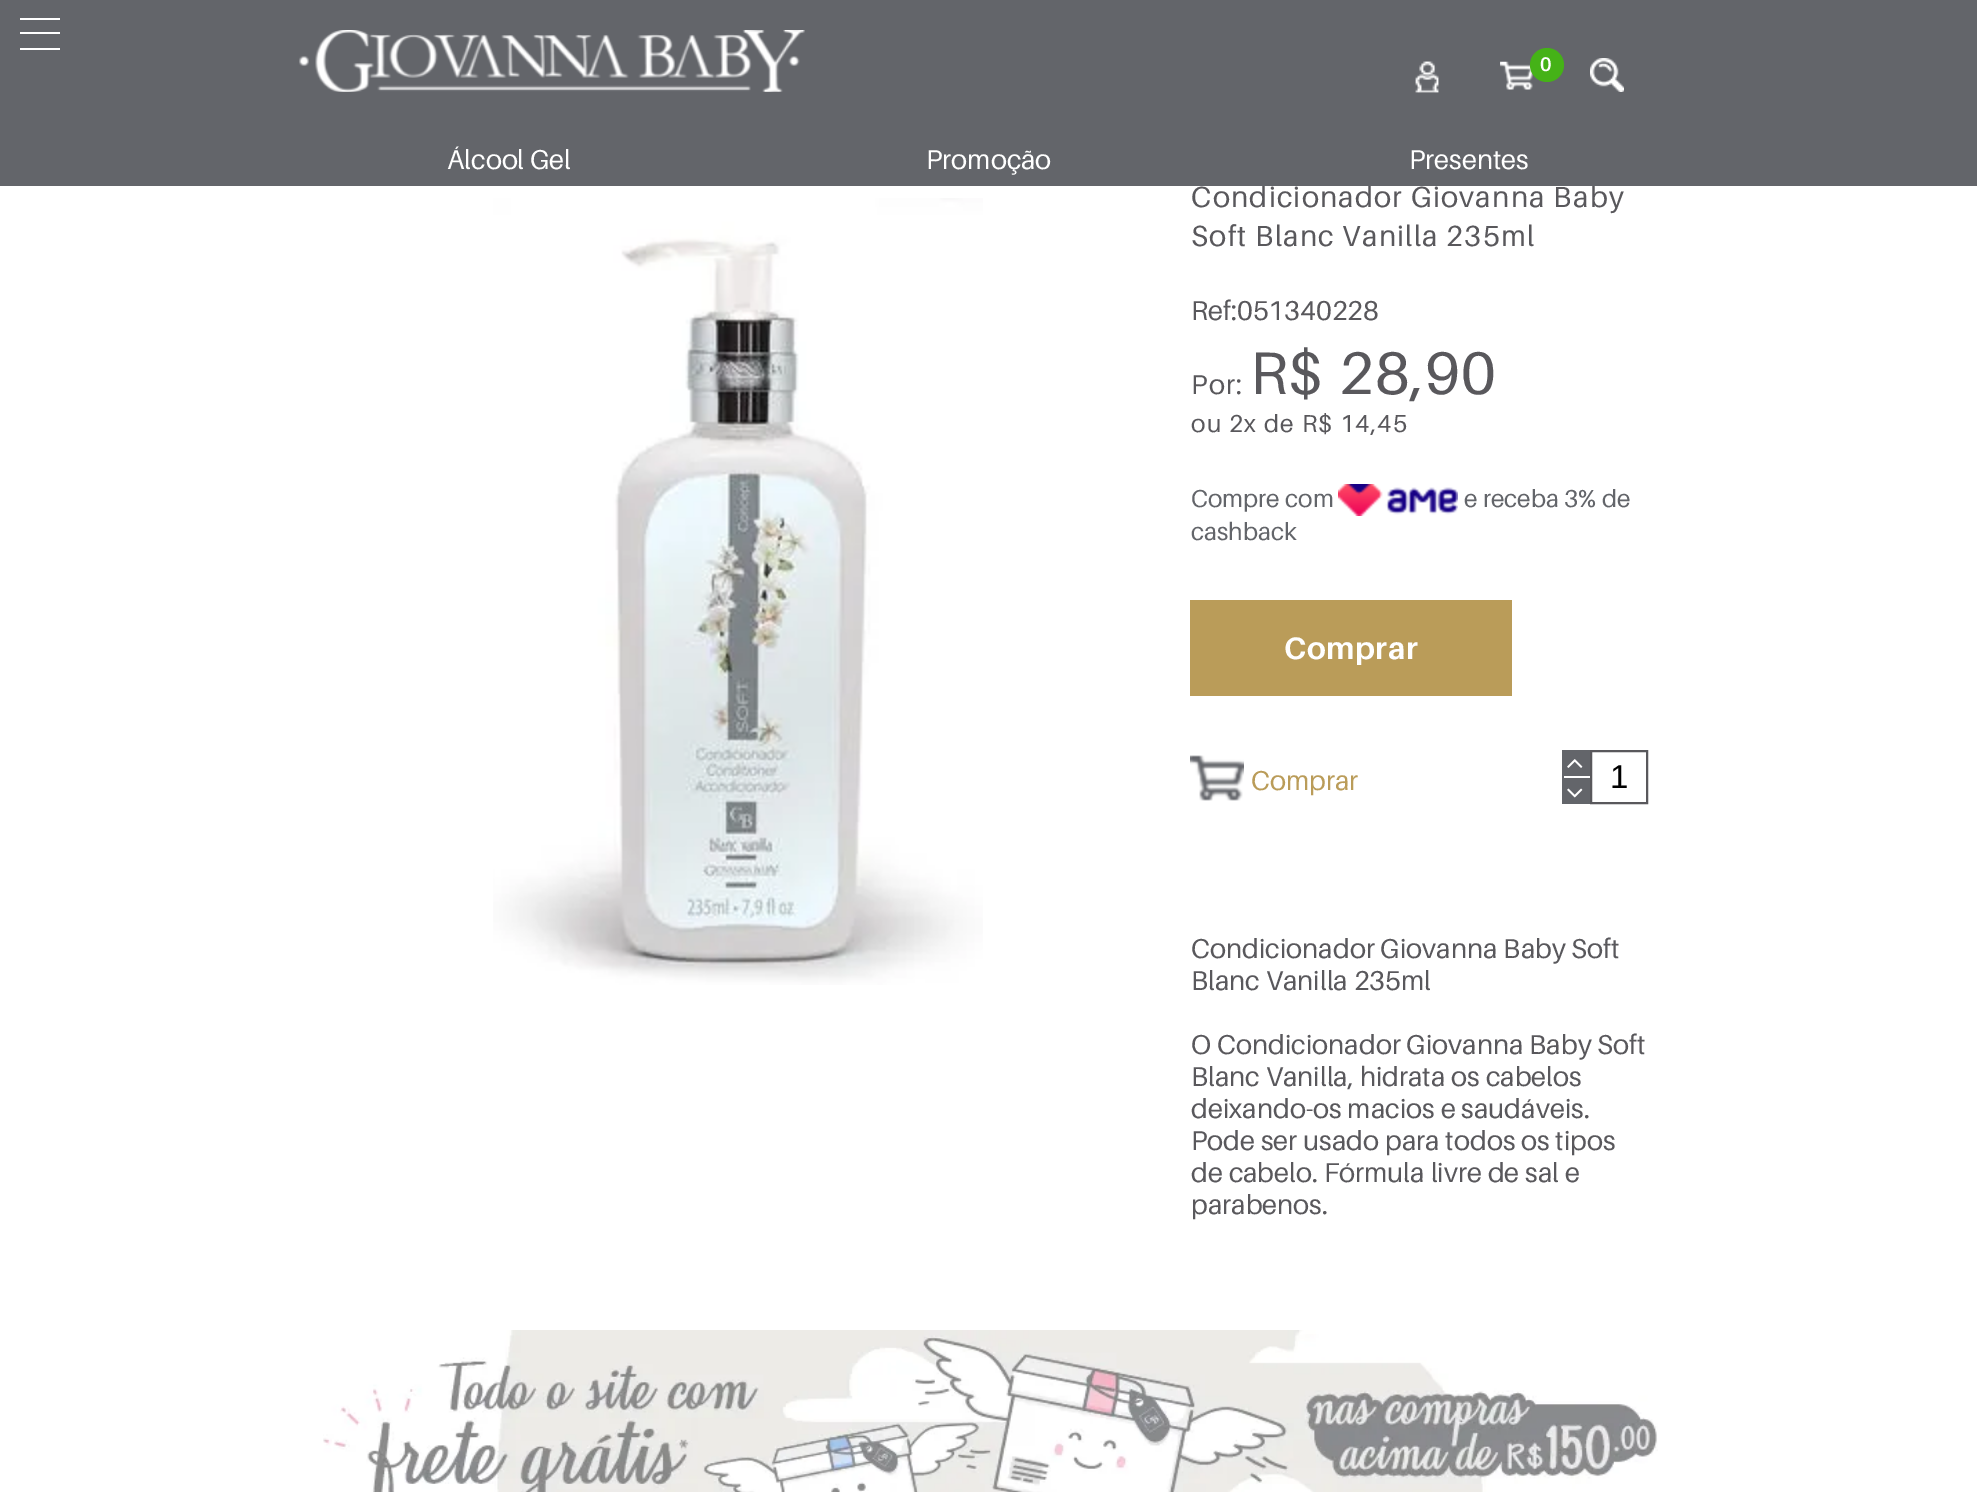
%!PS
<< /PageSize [1977 1492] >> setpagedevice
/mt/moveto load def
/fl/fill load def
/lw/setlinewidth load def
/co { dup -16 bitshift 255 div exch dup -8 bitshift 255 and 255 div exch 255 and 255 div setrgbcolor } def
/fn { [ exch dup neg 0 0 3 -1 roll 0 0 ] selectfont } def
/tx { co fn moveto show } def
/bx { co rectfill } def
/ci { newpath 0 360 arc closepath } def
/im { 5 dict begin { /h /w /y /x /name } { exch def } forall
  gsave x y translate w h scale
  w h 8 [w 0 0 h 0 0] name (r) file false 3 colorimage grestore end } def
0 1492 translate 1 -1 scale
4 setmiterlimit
0 0 1977 1492 16#FFFFFF bx
(media/5.raw) 493 198 490 787 im
(media/6.raw) 1338 484 120 32 im
1190 600 322 96 16#BA9C59 bx
(media/7.raw) 1190 755 54 46 im
1564 750 26 26 16#63656A bx
1562 750 2 28 16#63656A bx
(media/8.raw) 1567 759 16 9 im
1562 778 28 26 16#63656A bx
(media/9.raw) 1567 788 16 10 im
16#59585C co
2 lw
1591 751 56 52 rectstroke
(media/10.raw) 323 1330 1335 162 im
/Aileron-Regular 29.1 fn
1191 207 mt 1.25 0 (Condicionador Giovanna Baby) ashow
0 0 1977 186 16#63656A bx
20 48 40 2 16#FFFFFF bx
20 32 40 2 16#FFFFFF bx
20 18 40 2 16#FFFFFF bx
(media/3.raw) 1500 61 34 29 im
16#45B217 co
1547 65 17 ci fl
(0) 1540 71 /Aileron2-Bold 19 16#FFFFFF tx
(media/4.raw) 1590 58 34 34 im
(media/2.raw) 1415 61 24 32 im
(media/1.raw) 299 30 506 62 im
(Presentes) 1409 169 /Aileron-Regular 27.25 16#FFFFFF tx
(Promoção) 926 169 /Aileron-Regular 27.25 16#FFFFFF tx
(Álcool Gel) 447 169 /Aileron-Regular 27.25 16#FFFFFF tx
/Aileron-Regular 29.1 fn
16#59585C co
1191 246 mt 1.25 0 (Soft Blanc Vanilla 235ml) ashow
(Ref:051340228) 1191 320 /Aileron-Regular 27.25 16#59585C tx
1191 394 mt 1.25 0 (Por:) ashow
/Aileron-Regular 60 fn
1250 394 mt 1.25 0 (R$ 28,90) ashow
/Aileron-Regular 24.5 fn
1191 432 mt 1.25 0 (ou 2x de R$ 14,45) ashow
(Compre com) 1191 507 /Aileron-Regular 24.5 16#63656A tx
(e receba 3% de) 1464 507 /Aileron-Regular 24.5 16#63656A tx
(cashback) 1191 540 /Aileron-Regular 24.5 16#63656A tx
/Aileron-Bold 31 fn
16#FFFFFF co
1284 659 mt .5 0 (Comprar) ashow
(Comprar) 1251 790 /Aileron-Regular 27.25 16#BA9C59 tx
(1) 1610 788 /LiberationSans-Regular 33 16#000000 tx
(Condicionador Giovanna Baby Soft) 1191 958 /Aileron-Regular 27.25 16#59585C tx
(Blanc Vanilla 235ml) 1191 990 /Aileron-Regular 27.25 16#59585C tx
(O Condicionador Giovanna Baby Soft) 1191 1054 /Aileron-Regular 27.25 16#59585C tx
(Blanc Vanilla, hidrata os cabelos) 1191 1086 /Aileron-Regular 27.25 16#59585C tx
(deixando-os macios e saudáveis.) 1191 1118 /Aileron-Regular 27.25 16#59585C tx
(Pode ser usado para todos os tipos) 1191 1150 /Aileron-Regular 27.25 16#59585C tx
(de cabelo. Fórmula livre de sal e) 1191 1182 /Aileron-Regular 27.25 16#59585C tx
(parabenos.) 1191 1214 /Aileron-Regular 27.25 16#59585C tx
showpage
